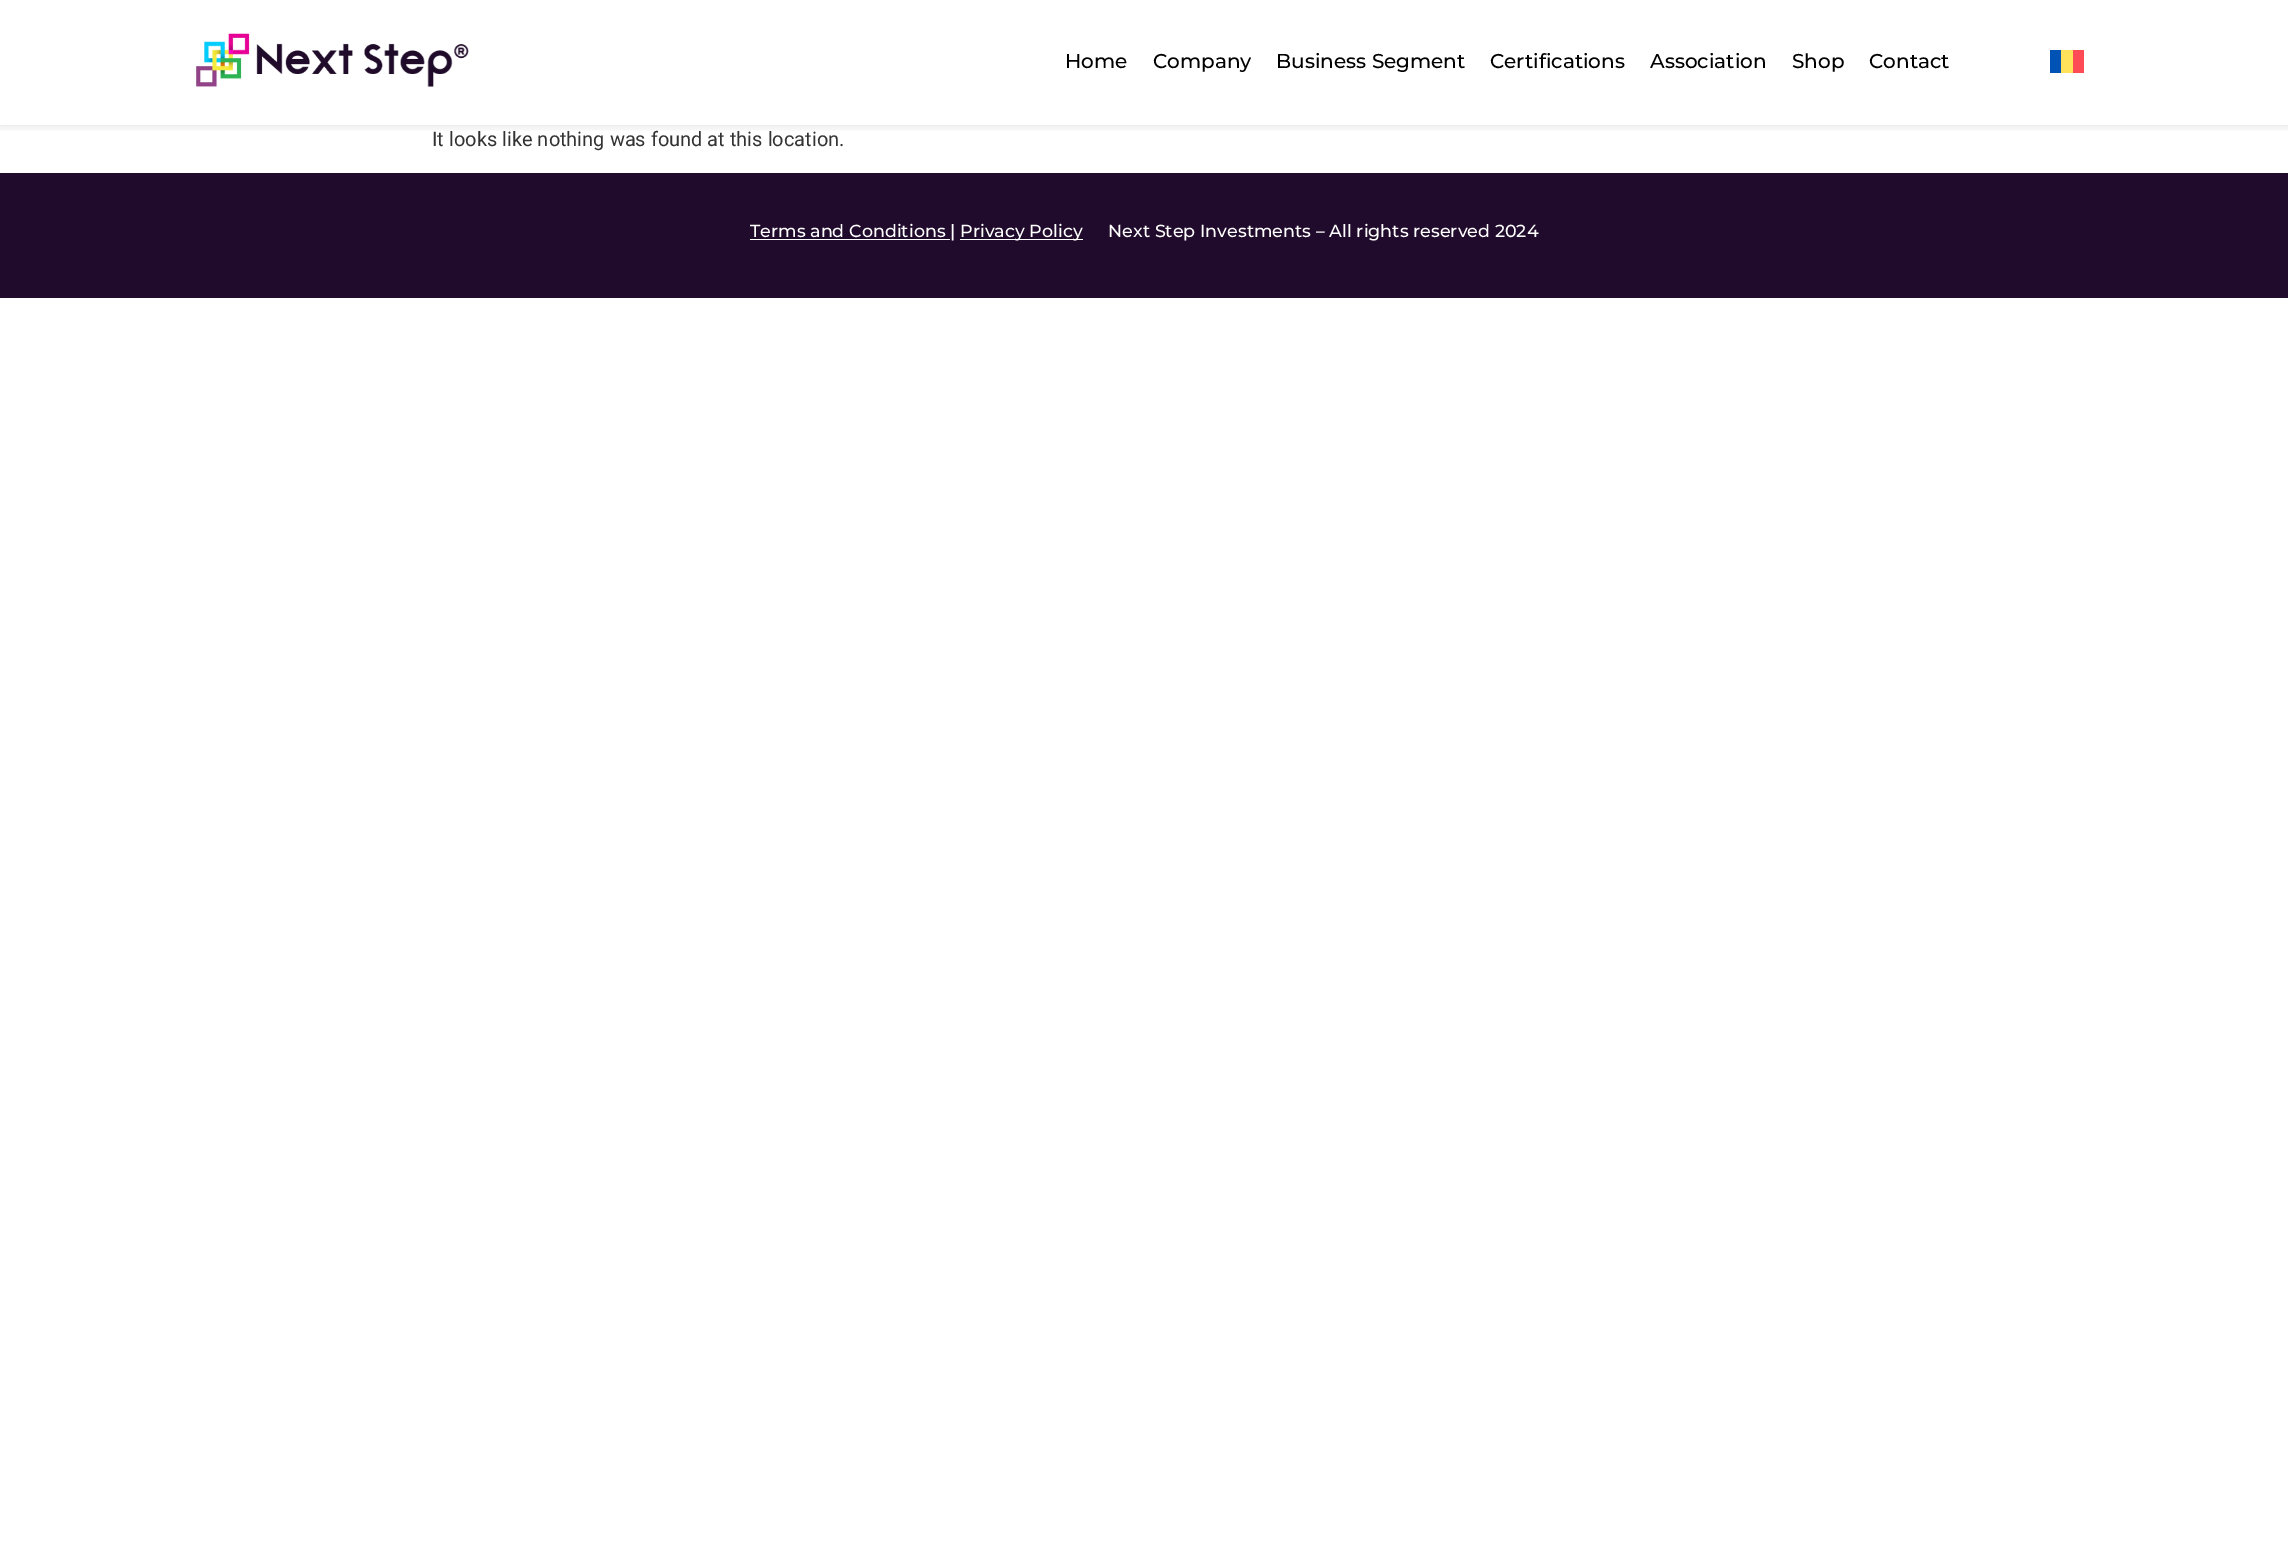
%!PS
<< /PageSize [2288 1546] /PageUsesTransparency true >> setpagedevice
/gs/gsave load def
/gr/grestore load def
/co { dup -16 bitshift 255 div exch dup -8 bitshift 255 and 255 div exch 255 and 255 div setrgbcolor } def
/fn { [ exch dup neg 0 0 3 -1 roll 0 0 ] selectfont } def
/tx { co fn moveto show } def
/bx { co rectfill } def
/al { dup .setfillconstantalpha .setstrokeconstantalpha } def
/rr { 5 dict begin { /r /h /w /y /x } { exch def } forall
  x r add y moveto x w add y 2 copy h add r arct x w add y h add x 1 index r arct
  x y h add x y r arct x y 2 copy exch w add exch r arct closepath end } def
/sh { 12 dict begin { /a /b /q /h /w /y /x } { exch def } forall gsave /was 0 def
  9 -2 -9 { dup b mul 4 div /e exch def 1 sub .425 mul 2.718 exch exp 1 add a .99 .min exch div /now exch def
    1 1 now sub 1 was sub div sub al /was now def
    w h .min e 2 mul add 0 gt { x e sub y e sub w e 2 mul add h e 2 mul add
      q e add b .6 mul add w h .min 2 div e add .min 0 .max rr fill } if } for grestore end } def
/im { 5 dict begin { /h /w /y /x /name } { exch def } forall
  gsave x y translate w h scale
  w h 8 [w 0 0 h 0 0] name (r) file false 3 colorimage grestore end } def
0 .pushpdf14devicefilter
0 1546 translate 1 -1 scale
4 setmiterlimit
0 0 2288 1546 16#FFFFFF bx
gs
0 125 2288 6 rectclip
16#000000 co
0 0 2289 125 0 6 .13 sh
gr
(media/1.raw) 196 33 273 54 im
2050 50 11 23 16#0052B4 bx
2061 50 12 23 16#FFE15A bx
2073 50 11 23 16#FF4B55 bx
0 173 2288 125 16#200B2C bx
750 239 200 1 16#FFFFFF bx
960 239 123 1 16#FFFFFF bx
(Home) 1065 68 /Montserrat-Medium 20 16#000000 tx
(Company) 1153 68 /Montserrat-Medium 20 16#000000 tx
(Business Segment) 1276 68 /Montserrat-Medium 20 16#000000 tx
(Certifications) 1490 68 /Montserrat-Medium 20 16#000000 tx
(Association) 1650 68 /Montserrat-Medium 20 16#000000 tx
(Shop) 1792 68 /Montserrat-Medium 20 16#000000 tx
(Contact) 1869 68 /Montserrat-Medium 20 16#000000 tx
(It looks like nothing was found at this location.) 432 146 /Roboto-Regular 20 16#333333 tx
(Terms and Conditions |) 750 237 /Montserrat-Medium 17.5 16#FFFFFF tx
(Privacy Policy) 960 237 /Montserrat-Medium 17.5 16#FFFFFF tx
(Next Step Investments – All rights reserved 2024) 1108 237 /Montserrat-Medium 17.5 16#FFFFFF tx
.poppdf14devicefilter showpage
